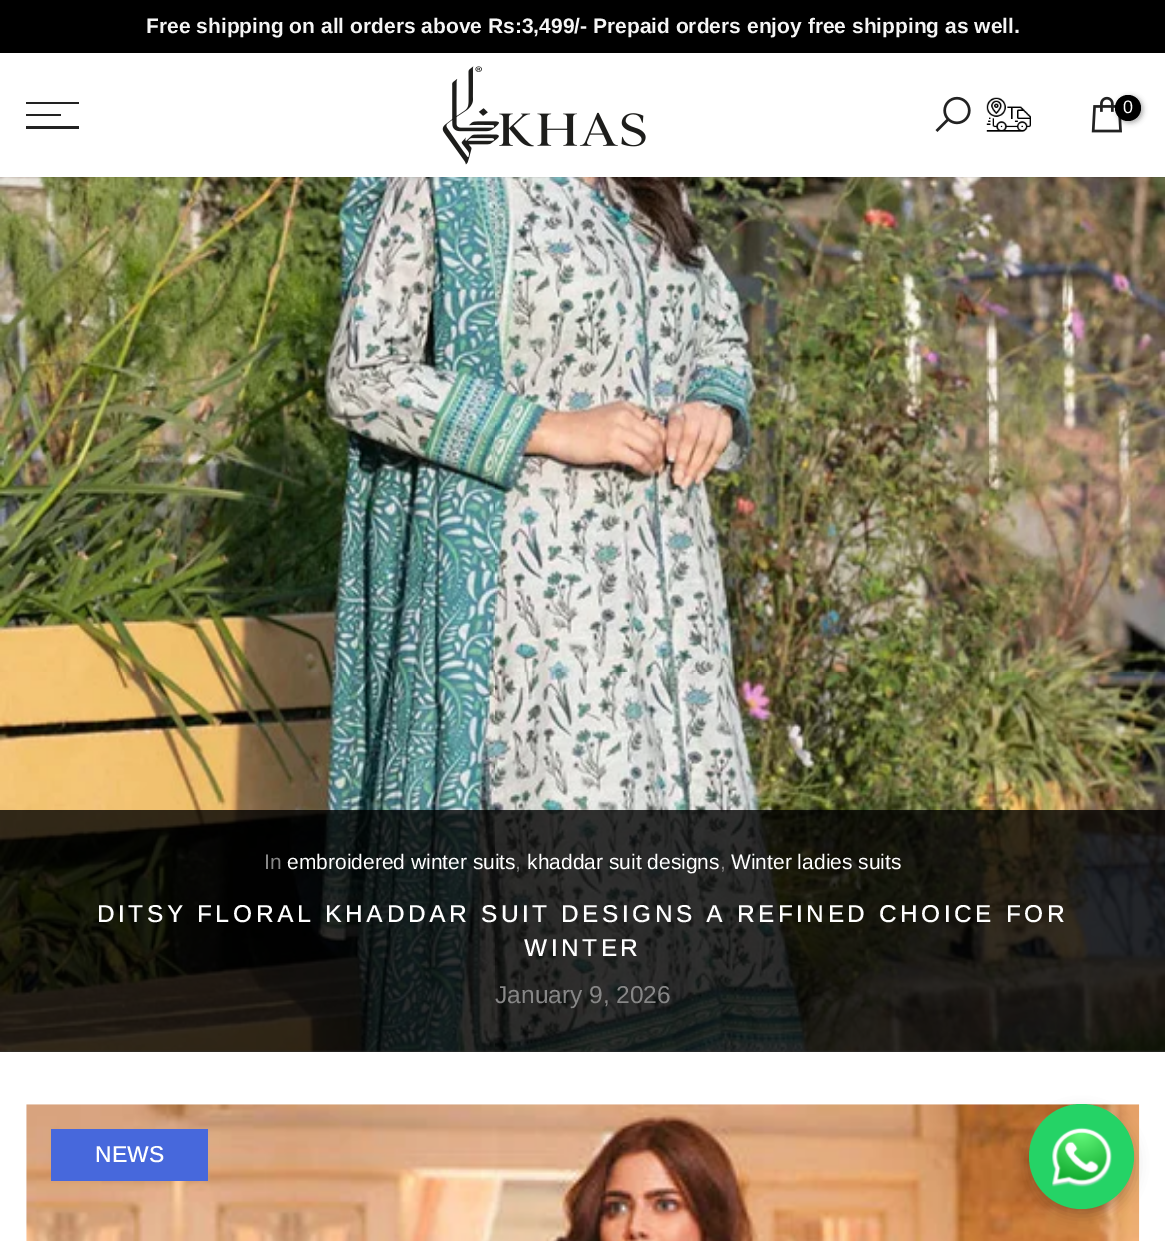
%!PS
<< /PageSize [1165 1241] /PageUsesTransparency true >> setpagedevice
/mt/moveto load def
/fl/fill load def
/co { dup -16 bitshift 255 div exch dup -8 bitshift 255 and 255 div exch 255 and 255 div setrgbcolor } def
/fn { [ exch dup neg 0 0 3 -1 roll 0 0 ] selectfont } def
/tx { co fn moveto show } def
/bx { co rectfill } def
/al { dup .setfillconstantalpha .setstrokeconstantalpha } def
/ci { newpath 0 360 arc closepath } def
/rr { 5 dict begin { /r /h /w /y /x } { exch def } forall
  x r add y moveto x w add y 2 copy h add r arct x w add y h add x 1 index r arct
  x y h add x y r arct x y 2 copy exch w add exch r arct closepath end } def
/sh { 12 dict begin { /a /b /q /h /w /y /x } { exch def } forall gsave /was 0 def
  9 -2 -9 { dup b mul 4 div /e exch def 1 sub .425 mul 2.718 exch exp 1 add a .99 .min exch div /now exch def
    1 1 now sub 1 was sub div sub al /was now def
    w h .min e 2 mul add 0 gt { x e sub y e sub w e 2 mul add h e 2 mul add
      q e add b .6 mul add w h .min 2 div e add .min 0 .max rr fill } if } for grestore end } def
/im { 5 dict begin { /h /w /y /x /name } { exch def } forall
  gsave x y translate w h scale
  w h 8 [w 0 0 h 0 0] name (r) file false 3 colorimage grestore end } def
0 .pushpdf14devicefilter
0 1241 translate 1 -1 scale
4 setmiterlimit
0 0 1165 1241 16#FFFFFF bx
0 0 1165 53 16#000000 bx
(media/5.raw) 0 177 1165 875 im
0 53 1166 124 0 1 .2 sh
0 53 1165 124 16#FFFFFF bx
26 102 53 2 16#222222 bx
26 114 35 2 16#222222 bx
26 126 53 3 16#222222 bx
(media/1.raw) 442 66 204 99 im
(media/2.raw) 935 96 36 36 im
(media/3.raw) 986 97 45 35 im
(media/4.raw) 1091 96 31 37 im
16#000000 co
1117 96 26 27 13 2.5 .3 sh
1128 108 13 ci fl
0.8 al
0 810 1165 242 16#000000 bx
1 al
(media/6.raw) 26 1104 1114 137 im
51 1129 157 52 16#4768DC bx
16#000000 co
1029 1111 105 105 52.5 7 .2 sh
16#25D366 co
1081.5 1156.5 52.5 ci fl
(media/7.raw) 1052 1127 60 60 im
(Free shipping on all orders above Rs:3,499/- Prepaid orders enjoy free shipping as well.) 146 33 /Arimo-Bold 21 16#F5F5F5 tx
(0) 1123 113 /Arimo-Regular 18 16#FFFFFF tx
(In) 264 869 /Arimo-Regular 21 16#878787 tx
(embroidered winter suits) 287 869 /Arimo-Regular 21 16#FFFFFF tx
(,) 515 869 /Arimo-Regular 21 16#878787 tx
(khaddar suit designs) 527 869 /Arimo-Regular 21 16#FFFFFF tx
(,) 720 869 /Arimo-Regular 21 16#878787 tx
(Winter ladies suits) 731 869 /Arimo-Regular 21 16#FFFFFF tx
/Arimo-Medium 24.5 fn
97 922 mt 3.5 0 (DITSY FLORAL KHADDAR SUIT DESIGNS A REFINED CHOICE FOR) ashow
524 956 mt 3.5 0 (WINTER) ashow
(January 9, 2026) 495 1003 /Arimo-Regular 24.5 16#878787 tx
(NEWS) 95 1162 /Arimo-Medium 23 16#FFFFFF tx
.poppdf14devicefilter showpage
